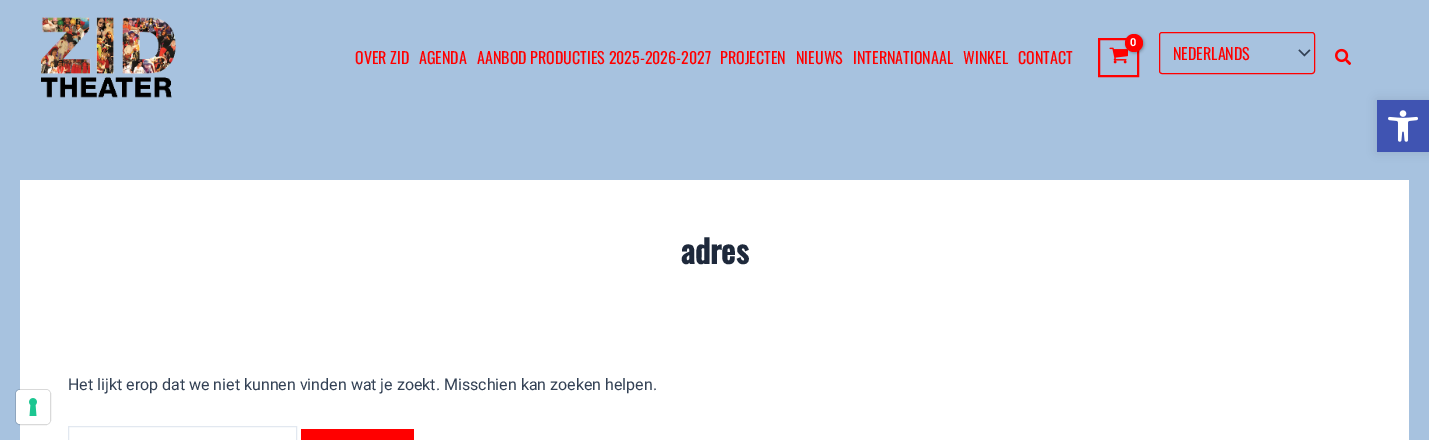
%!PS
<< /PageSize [1429 440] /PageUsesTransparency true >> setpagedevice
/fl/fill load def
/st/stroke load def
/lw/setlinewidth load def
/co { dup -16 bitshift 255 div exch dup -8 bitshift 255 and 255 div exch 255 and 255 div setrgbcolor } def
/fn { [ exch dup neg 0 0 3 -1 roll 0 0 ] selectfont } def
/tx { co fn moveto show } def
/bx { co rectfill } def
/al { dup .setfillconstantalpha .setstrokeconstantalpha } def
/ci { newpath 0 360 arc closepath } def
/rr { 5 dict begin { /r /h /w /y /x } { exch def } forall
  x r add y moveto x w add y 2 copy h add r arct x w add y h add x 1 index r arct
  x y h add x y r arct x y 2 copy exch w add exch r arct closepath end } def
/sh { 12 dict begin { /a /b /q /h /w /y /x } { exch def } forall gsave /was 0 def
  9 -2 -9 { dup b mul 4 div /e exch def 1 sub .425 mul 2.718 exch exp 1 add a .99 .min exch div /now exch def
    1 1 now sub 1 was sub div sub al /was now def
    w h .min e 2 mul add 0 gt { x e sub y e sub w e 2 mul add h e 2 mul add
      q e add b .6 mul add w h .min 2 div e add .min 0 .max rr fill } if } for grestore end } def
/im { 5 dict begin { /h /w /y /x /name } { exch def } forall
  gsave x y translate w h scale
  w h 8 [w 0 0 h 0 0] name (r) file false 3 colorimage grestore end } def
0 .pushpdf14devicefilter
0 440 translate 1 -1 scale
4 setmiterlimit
0 0 1429 440 16#A7C2DF bx
(media/1.raw) 41 17 135 81 im
16#FF0000 co
2 lw
1099 39 39 37 rectstroke
(media/2.raw) 1109 47 19 17 im
16#000000 co
1126 35 18 18 9 1.5 .3 sh
16#FF0000 co
1134 43 9 ci fl
(media/3.raw) 1298 49 13 8 im
1 lw
1159.5 32.5 155 41 2.5 rr st
(media/4.raw) 1335 48 16 17 im
20 180 1389 260 16#FFFFFF bx
16#E2E8F0 co
68.5 426.5 228 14 rectstroke
301 429 113 11 16#FF0000 bx
16#000000 co
1377 100 52 52 0 5 .1 sh
1377 100 52 52 16#4054B2 bx
(media/5.raw) 1388 110 30 32 im
0.15 al
16#000000 co
15.5 389.5 35 35 4.5 rr st
1 al
16#FFFFFF co
16 390 34 34 4 rr fl
(media/6.raw) 29 398 8 18 im
(OVER ZID) 355 64 /Oswald-Regular 16 16#FF0000 tx
(AGENDA) 419 64 /Oswald-Regular 16 16#FF0000 tx
(AANBOD PRODUCTIES 2025-2026-2027) 477 64 /Oswald-Regular 16 16#FF0000 tx
(PROJECTEN) 720 64 /Oswald-Regular 16 16#FF0000 tx
(NIEUWS) 796 64 /Oswald-Regular 16 16#FF0000 tx
(INTERNATIONAAL) 853 64 /Oswald-Regular 16 16#FF0000 tx
(WINKEL) 963 64 /Oswald-Regular 16 16#FF0000 tx
(CONTACT) 1018 64 /Oswald-Regular 16 16#FF0000 tx
(0) 1130 46 /Roboto-Bold 11 16#FFFFFF tx
(NEDERLANDS) 1173 60 /Oswald-Regular 16 16#FF0000 tx
(adres) 681 264 /Oswald-Bold 32 16#1E293B tx
(Het lijkt erop dat we niet kunnen vinden wat je zoekt. Misschien kan zoeken helpen.) 68 390 /Roboto-Regular 16 16#334155 tx
.poppdf14devicefilter showpage
